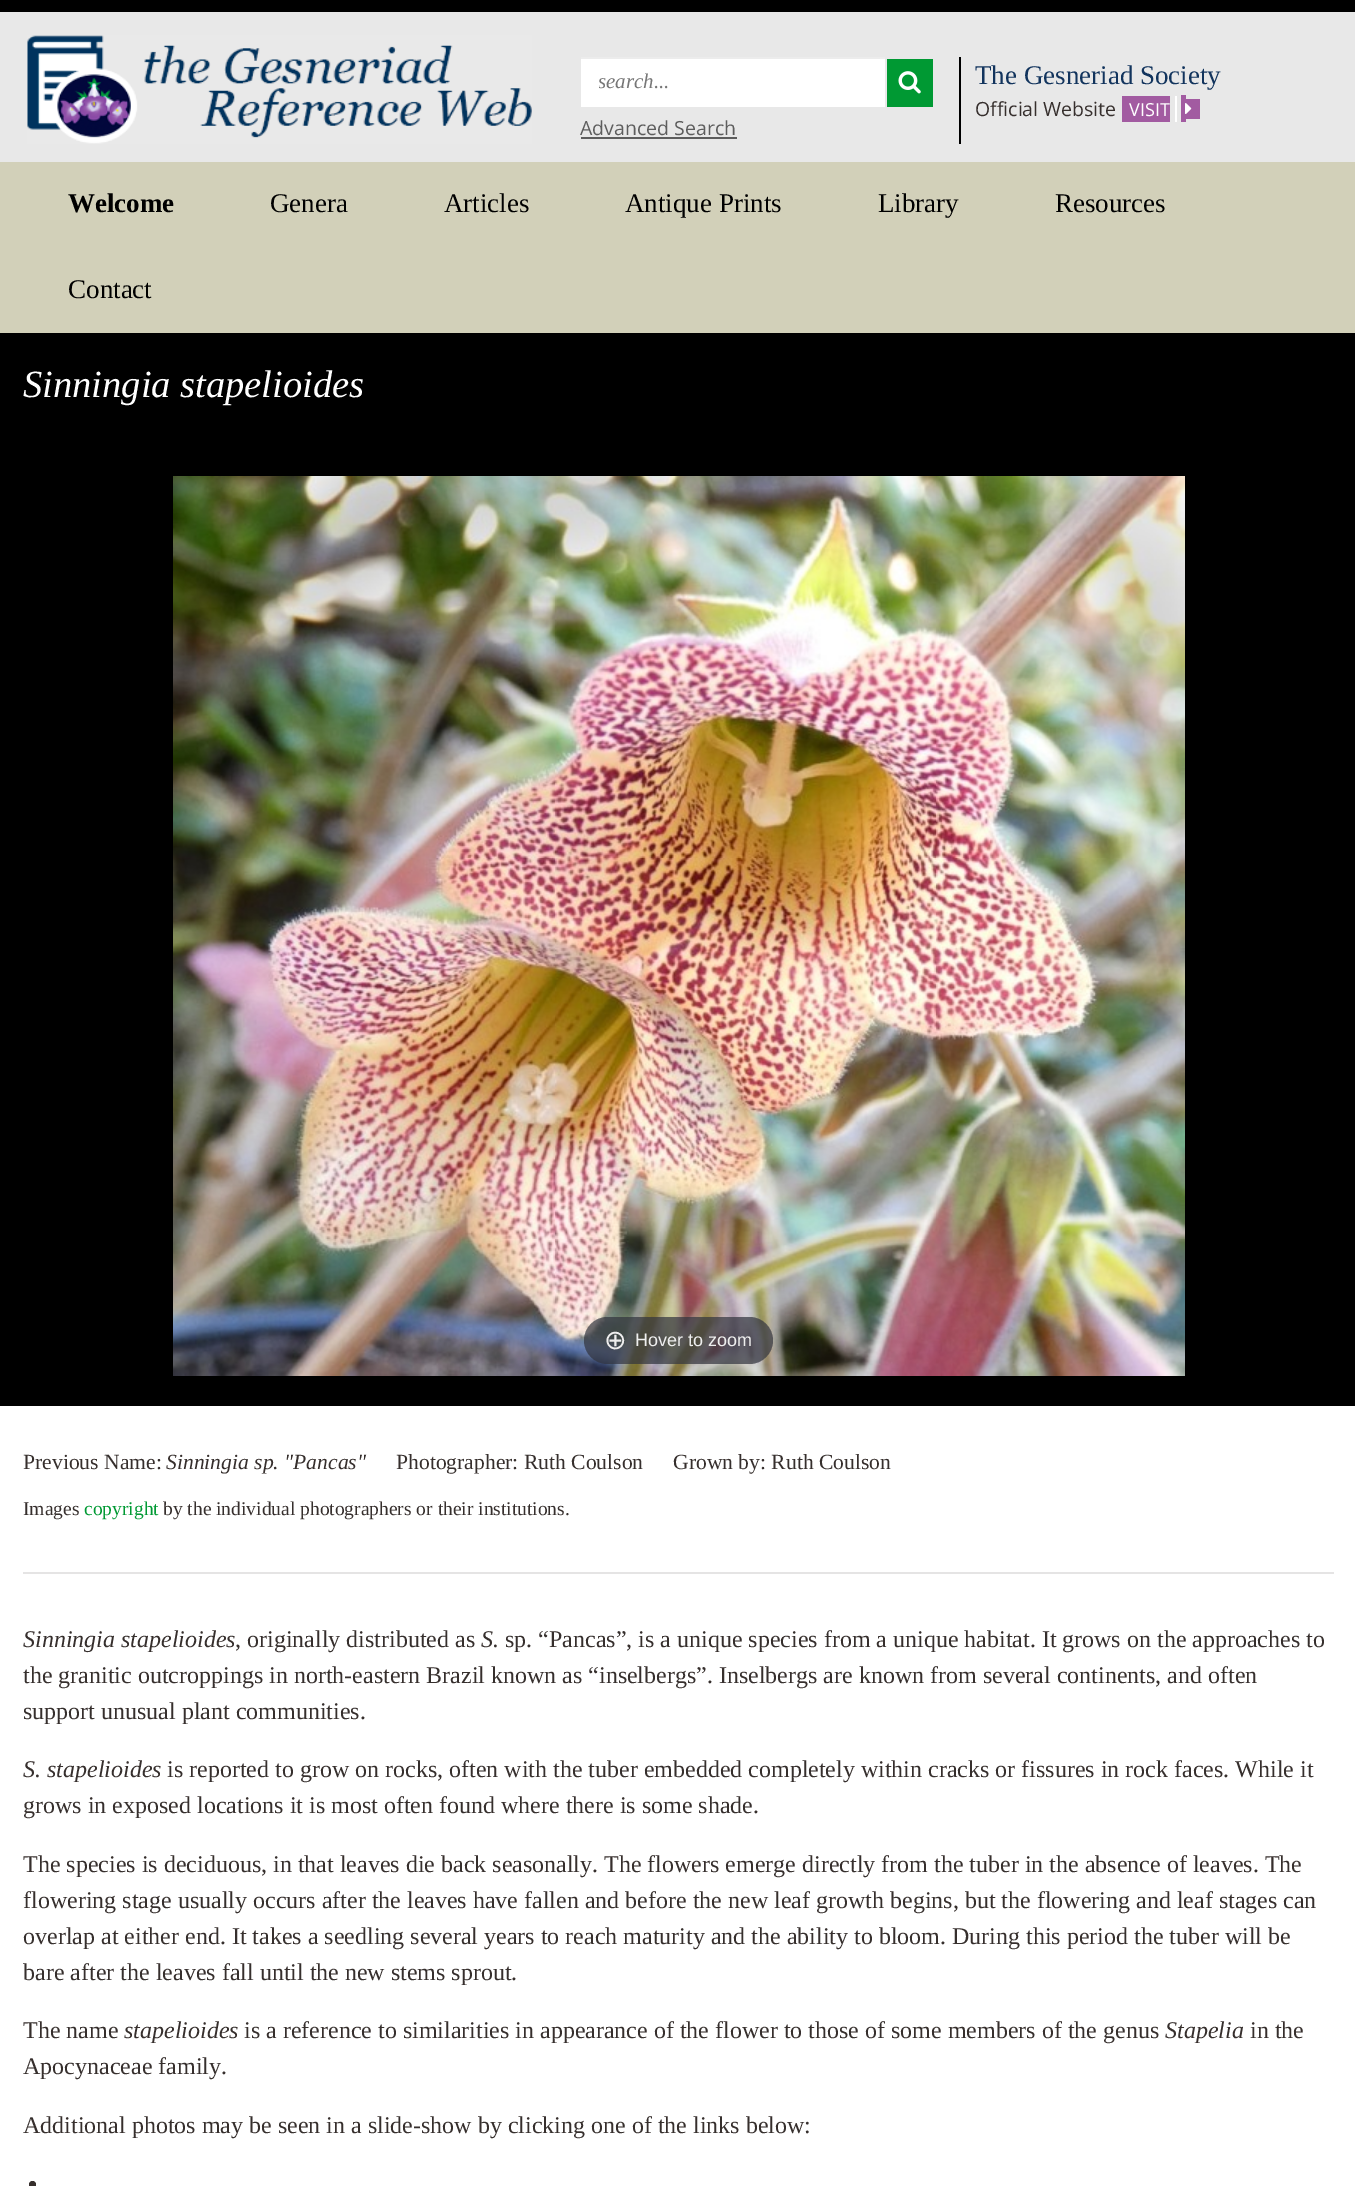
%!PS
<< /PageSize [1355 2186] /PageUsesTransparency true >> setpagedevice
/fl/fill load def
/gs/gsave load def
/gr/grestore load def
/co { dup -16 bitshift 255 div exch dup -8 bitshift 255 and 255 div exch 255 and 255 div setrgbcolor } def
/fn { [ exch dup neg 0 0 3 -1 roll 0 0 ] selectfont } def
/tx { co fn moveto show } def
/bx { co rectfill } def
/al { dup .setfillconstantalpha .setstrokeconstantalpha } def
/rr { 5 dict begin { /r /h /w /y /x } { exch def } forall
  x r add y moveto x w add y 2 copy h add r arct x w add y h add x 1 index r arct
  x y h add x y r arct x y 2 copy exch w add exch r arct closepath end } def
/im { 5 dict begin { /h /w /y /x /name } { exch def } forall
  gsave x y translate w h scale
  w h 8 [w 0 0 h 0 0] name (r) file false 3 colorimage grestore end } def
0 .pushpdf14devicefilter
0 2186 translate 1 -1 scale
4 setmiterlimit
0 0 1355 2186 16#E8E8E8 bx
0 0 1355 12 16#000000 bx
(media/1.raw) 27 35 505 109 im
959 57 2 87 16#000000 bx
581 59 304 48 16#FFFFFF bx
581 57 304 2 16#ECECEC bx
887 59 46 48 16#009933 bx
(media/2.raw) 898 71 23 23 im
581 137 156 2 16#5D5D5D bx
1122 96 48 26 16#A25BA1 bx
1181 95 5 27 16#A25BA1 bx
1186 99 14 20 16#A25BA1 bx
1175 96 2 26 16#FFFFFF bx
(media/3.raw) 1185 103 7 11 im
0 162 1355 171 16#D2D0B9 bx
0 333 1355 1073 16#000000 bx
(media/4.raw) 173 476 1012 900 im
0.7 al
16#31333D co
584 1317 189 47 23.5 rr fl
1 al
0 1406 1355 780 16#FFFFFF bx
23 1572 1311 2 16#E5E4E4 bx
16#362F2D co
29 2181 7 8 3.5 rr fl
gs
599 71 262 24 rectclip
(search...) 598 88 /LiberationSerif-Italic 21 16#777777 tx
gr
(Advanced Search) 580 135 /OpenSans-Regular 19.5 16#5D5D5D tx
(The Gesneriad Society) 975 84 /LiberationSerif-Regular 27 16#12345D tx
(Official Website) 975 116 /OpenSans-Regular 19.5 16#362F2D tx
(VISIT) 1129 116 /OpenSans-Regular 18 16#FFFFFF tx
(Welcome) 68 212 /LiberationSerif-Bold 27 16#000000 tx
(Genera) 270 212 /LiberationSerif-Regular 27 16#000000 tx
(Articles) 444 212 /LiberationSerif-Regular 27 16#000000 tx
(Antique Prints) 625 212 /LiberationSerif-Regular 27 16#000000 tx
(Library) 878 212 /LiberationSerif-Regular 27 16#000000 tx
(Resources) 1055 212 /LiberationSerif-Regular 27 16#000000 tx
(Contact) 68 298 /LiberationSerif-Regular 27 16#000000 tx
(Sinningia stapelioides) 23 397 /LiberationSerif-Italic 38.5 16#FFFFFF tx
(⊕) 604 1349 /DejaVuSans-Regular 27 16#EEEEEE tx
(Hover to zoom) 635 1346 /LiberationSans-Regular 18 16#EEEEEE tx
(Previous Name:) 23 1469 /LiberationSerif-Regular 21.6 16#362F2D tx
(Sinningia sp. "Pancas") 166 1469 /LiberationSerif-Italic 21.6 16#362F2D tx
(Photographer: Ruth Coulson) 396 1469 /LiberationSerif-Regular 21.6 16#362F2D tx
(Grown by: Ruth Coulson) 673 1469 /LiberationSerif-Regular 21.6 16#362F2D tx
(Images) 23 1515 /LiberationSerif-Regular 19.5 16#362F2D tx
(copyright) 84 1515 /LiberationSerif-Regular 19.5 16#009933 tx
(by the individual photographers or their institutions.) 163 1515 /LiberationSerif-Regular 19.5 16#362F2D tx
(Sinningia stapelioides) 23 1647 /LiberationSerif-Italic 24 16#362F2D tx
(, originally distributed as) 235 1647 /LiberationSerif-Regular 24 16#362F2D tx
(S.) 481 1647 /LiberationSerif-Italic 24 16#362F2D tx
(sp. “Pancas”, is a unique species from a unique habitat. It grows on the approaches to) 505 1647 /LiberationSerif-Regular 24 16#362F2D tx
(the granitic outcroppings in north-eastern Brazil known as “inselbergs”. Inselbergs are known from several continents, and often) 23 1683 /LiberationSerif-Regular 24 16#362F2D tx
(support unusual plant communities.) 23 1719 /LiberationSerif-Regular 24 16#362F2D tx
(S. stapelioides) 23 1777 /LiberationSerif-Italic 24 16#362F2D tx
(is reported to grow on rocks, often with the tuber embedded completely within cracks or fissures in rock faces. While it) 167 1777 /LiberationSerif-Regular 24 16#362F2D tx
(grows in exposed locations it is most often found where there is some shade.) 23 1813 /LiberationSerif-Regular 24 16#362F2D tx
(The species is deciduous, in that leaves die back seasonally. The flowers emerge directly from the tuber in the absence of leaves. The) 23 1872 /LiberationSerif-Regular 24 16#362F2D tx
(flowering stage usually occurs after the leaves have fallen and before the new leaf growth begins, but the flowering and leaf stages can) 23 1908 /LiberationSerif-Regular 24 16#362F2D tx
(overlap at either end. It takes a seedling several years to reach maturity and the ability to bloom. During this period the tuber will be) 23 1944 /LiberationSerif-Regular 24 16#362F2D tx
(bare after the leaves fall until the new stems sprout.) 23 1980 /LiberationSerif-Regular 24 16#362F2D tx
(The name) 23 2038 /LiberationSerif-Regular 24 16#362F2D tx
(stapelioides) 124 2038 /LiberationSerif-Italic 24 16#362F2D tx
(is a reference to similarities in appearance of the flower to those of some members of the genus) 244 2038 /LiberationSerif-Regular 24 16#362F2D tx
(Stapelia) 1165 2038 /LiberationSerif-Italic 24 16#362F2D tx
(in the) 1250 2038 /LiberationSerif-Regular 24 16#362F2D tx
(Apocynaceae family.) 23 2074 /LiberationSerif-Regular 24 16#362F2D tx
(Additional photos may be seen in a slide-show by clicking one of the links below:) 23 2133 /LiberationSerif-Regular 24 16#362F2D tx
.poppdf14devicefilter showpage
